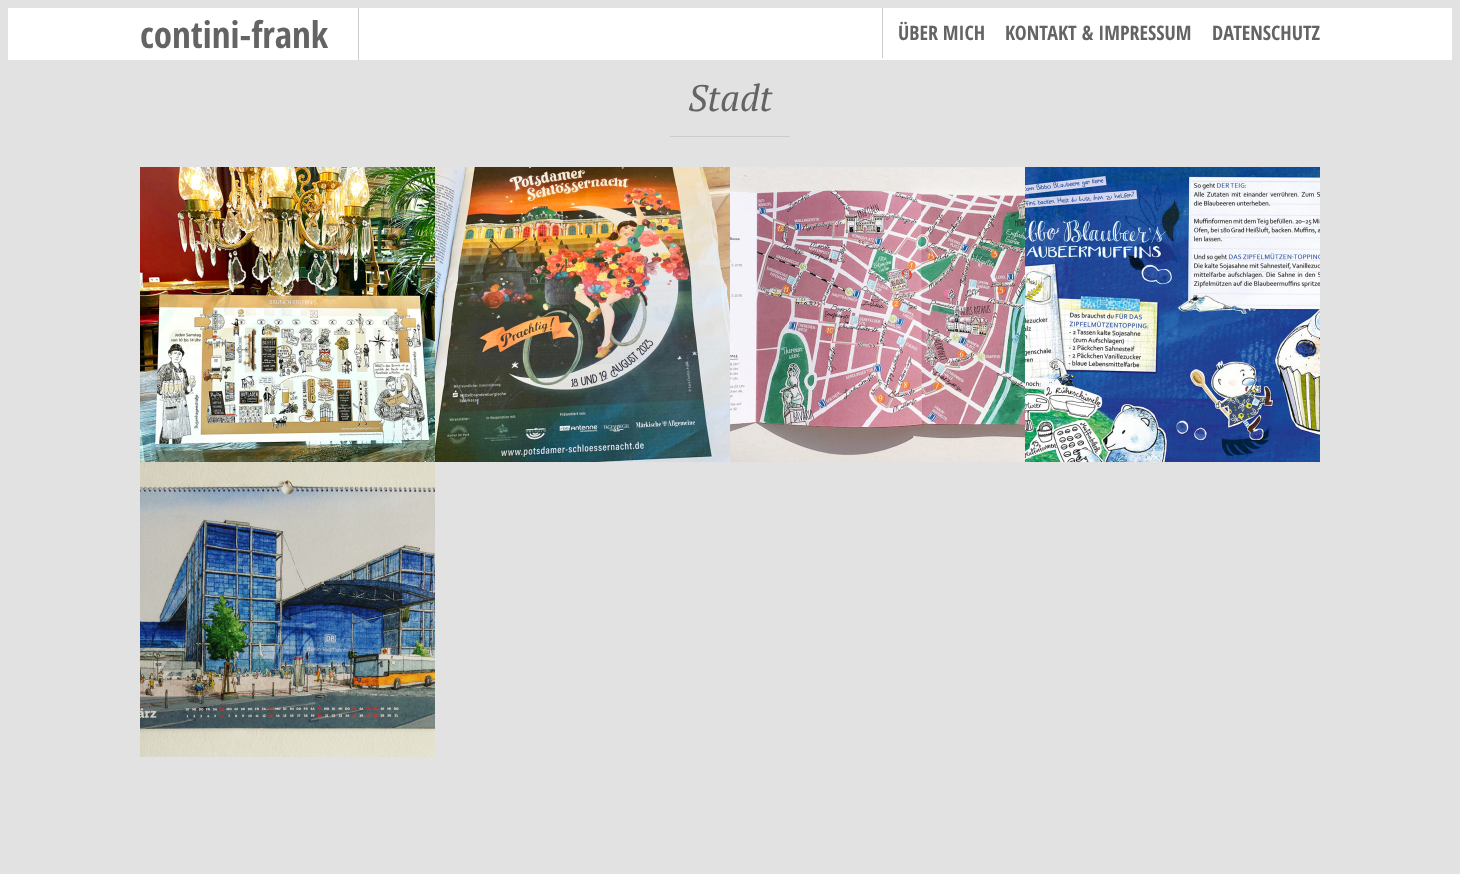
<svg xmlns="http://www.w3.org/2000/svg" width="1460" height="874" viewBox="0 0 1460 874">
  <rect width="100%" height="100%" fill="rgb(226,226,226)"/>
  <rect x="8" y="8" width="1444" height="52" fill="rgb(255,255,255)"/>
  <rect x="358" y="8" width="1" height="52" fill="rgb(204,204,204)"/>
  <text x="140" y="48" font-family="Open Sans Condensed" font-size="37" font-weight="bold" fill="rgb(100,100,100)">contini-frank</text>
  <rect x="882" y="8" width="1" height="50" fill="rgb(204,204,204)"/>
  <g font-family="Open Sans Condensed" font-size="20" font-weight="bold" fill="rgb(100,100,100)">
    <text x="898" y="40">ÜBER MICH</text>
    <text x="1005" y="40">KONTAKT &amp; IMPRESSUM</text>
    <text x="1212" y="40">DATENSCHUTZ</text>
  </g>
  <text x="688" y="111" font-family="PT Serif" font-size="37" font-style="italic" fill="rgb(100,100,100)">Stadt</text>
  <rect x="670" y="136" width="120" height="1" fill="rgb(204,204,204)"/>
  <image x="140" y="167" width="295" height="295" href="pic1.png"/>
  <image x="435" y="167" width="295" height="295" href="pic2.png"/>
  <image x="730" y="167" width="295" height="295" href="pic3.png"/>
  <image x="1025" y="167" width="295" height="295" href="pic4.png"/>
  <image x="140" y="462" width="295" height="295" href="pic5.png"/>
</svg>
